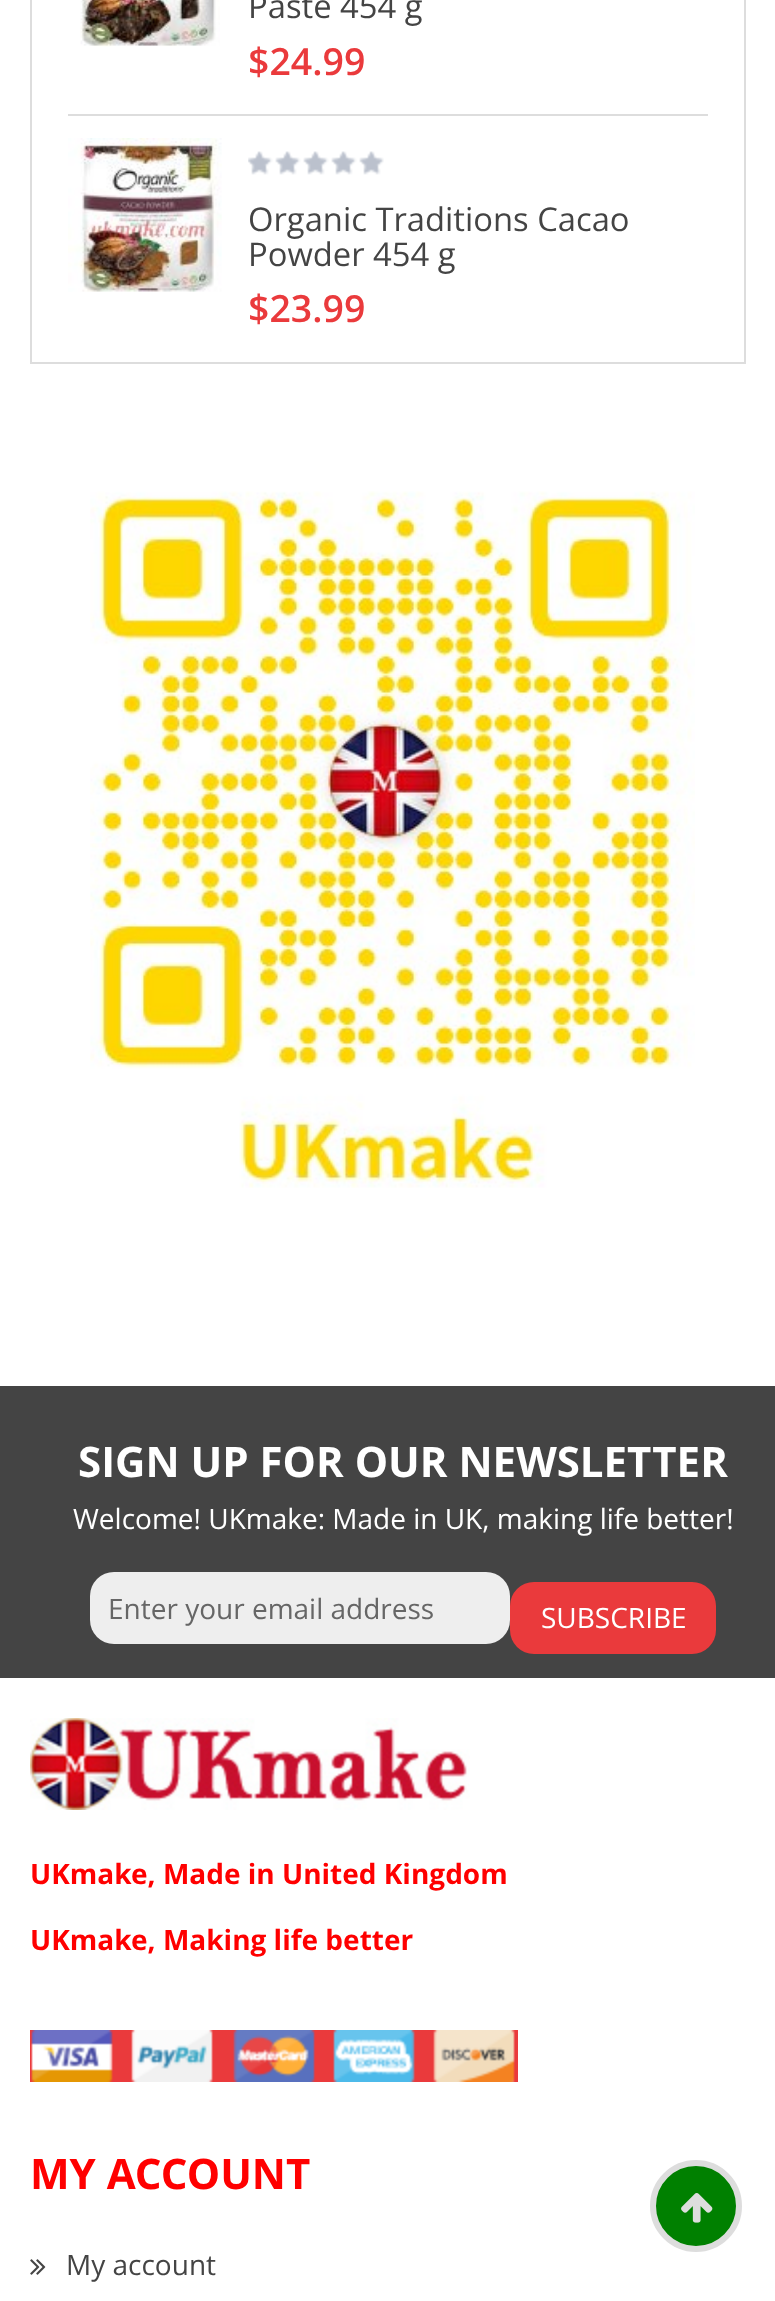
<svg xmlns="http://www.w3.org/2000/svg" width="775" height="2301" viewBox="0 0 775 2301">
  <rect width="100%" height="100%" fill="rgb(255,255,255)"/>
  <rect x="31" y="-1" width="714" height="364" fill="none" stroke="rgb(221,221,221)" stroke-width="2"/>
  <rect x="68" y="114" width="640" height="2" fill="rgb(221,221,221)"/>
  <image x="80" y="0" width="140" height="47" href="pic1.png"/>
  <text x="248" y="18" font-family="Open Sans" font-size="32.75" fill="rgb(68,68,68)">Paste 454 g</text>
  <text x="248" y="75" font-family="Open Sans" font-size="37.5" font-weight="600" fill="rgb(234,58,60)">$24.99</text>
  <image x="68" y="138" width="154" height="154" href="pic2.png"/>
  <image x="248" y="151" width="136" height="24" href="pic3.png"/>
  <g font-family="Open Sans" font-size="32.75" fill="rgb(68,68,68)">
    <text>
      <tspan x="248" y="231">Organic Traditions Cacao</tspan>
      <tspan x="248" y="266">Powder 454 g</tspan>
    </text>
  </g>
  <text x="248" y="322" font-family="Open Sans" font-size="37.5" font-weight="600" fill="rgb(234,58,60)">$23.99</text>
  <image x="90" y="491" width="605" height="697" href="pic4.png"/>
  <rect x="0" y="1386" width="775" height="292" fill="rgb(68,68,68)"/>
  <text x="78" y="1477" font-family="Open Sans" font-size="42" font-weight="bold" fill="rgb(255,255,255)">SIGN UP FOR OUR NEWSLETTER</text>
  <text x="73" y="1529" font-family="Open Sans" font-size="28" fill="rgb(255,255,255)">Welcome! UKmake: Made in UK, making life better!</text>
  <rect x="90" y="1572" width="420" height="72" rx="24" fill="rgb(238,238,238)"/>
  <text x="108" y="1619" font-family="Open Sans" font-size="28" fill="rgb(102,102,102)">Enter your email address</text>
  <rect x="510" y="1582" width="206" height="72" rx="24" fill="rgb(234,58,60)"/>
  <text x="541" y="1628" font-family="Open Sans" font-size="28" fill="rgb(255,255,255)">SUBSCRIBE</text>
  <image x="30" y="1718" width="440" height="92" href="pic5.png"/>
  <g font-family="Open Sans" font-size="28" font-weight="bold" fill="rgb(255,0,0)">
    <text x="30" y="1884">UKmake, Made in United Kingdom</text>
    <text x="30" y="1950">UKmake, Making life better</text>
  </g>
  <rect x="30" y="2030" width="488" height="52" fill="rgb(234,58,60)"/>
  <image x="31" y="2030" width="484" height="52" href="pic6.png"/>
  <text x="30" y="2189" font-family="Open Sans" font-size="42" font-weight="bold" fill="rgb(255,0,0)">MY ACCOUNT</text>
  <image x="30" y="2259" width="16" height="16" href="pic7.png"/>
  <text x="66" y="2275" font-family="Open Sans" font-size="28" fill="rgb(68,68,68)">My account</text>
  <circle cx="696" cy="2206" r="43" fill="rgb(0,128,0)" stroke="rgb(221,221,221)" stroke-width="6"/>
  <image x="681" y="2193" width="32" height="30" href="pic8.png"/>
</svg>
